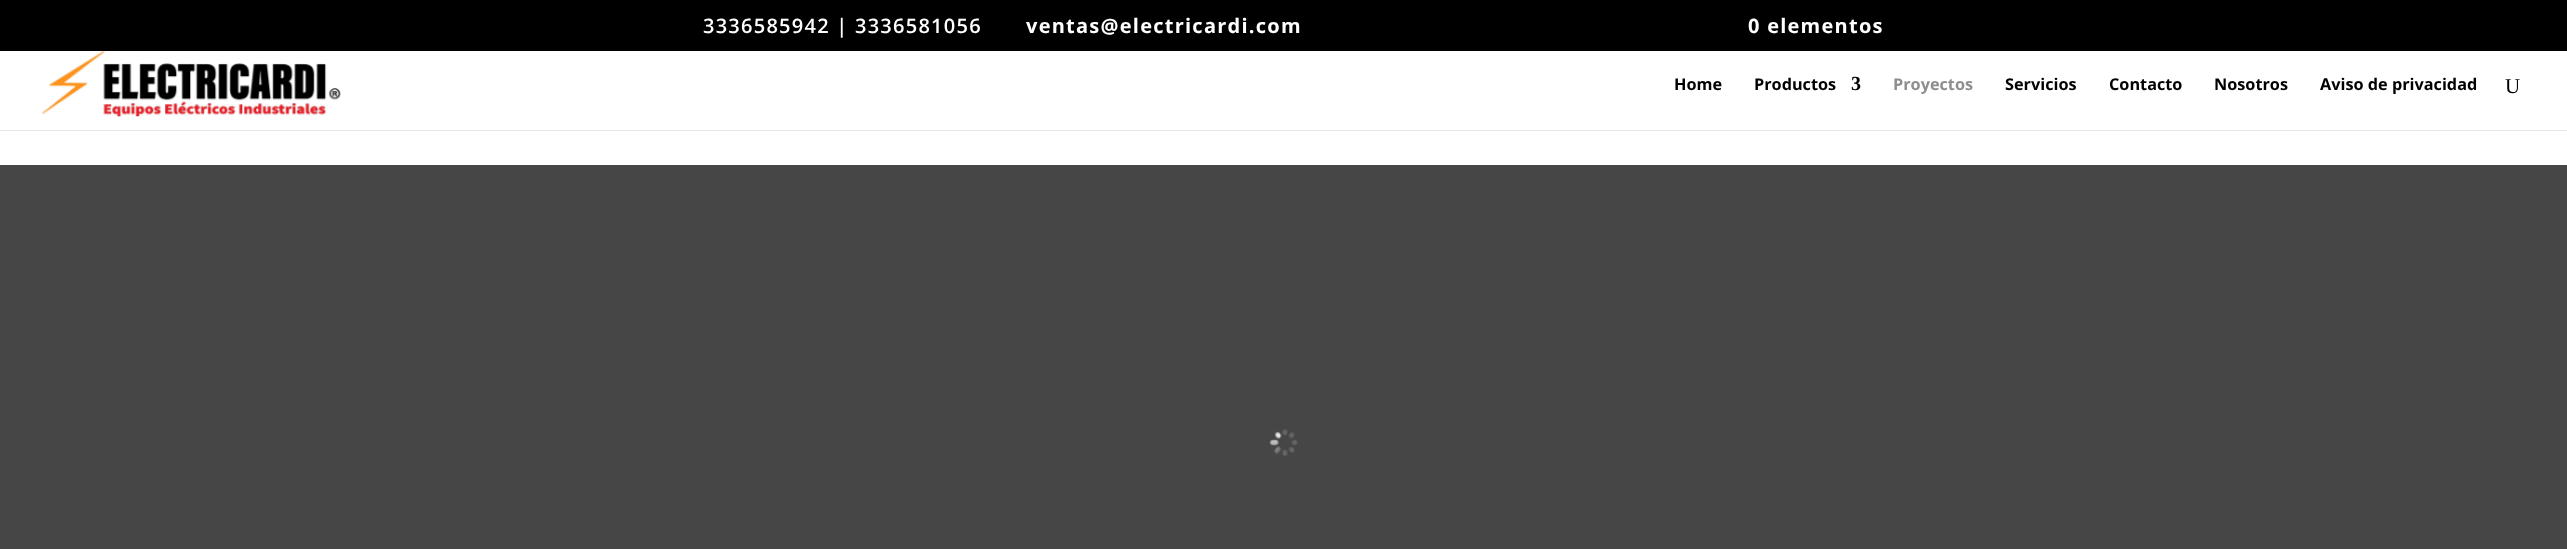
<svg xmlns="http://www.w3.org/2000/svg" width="2567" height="549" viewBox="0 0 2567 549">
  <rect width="100%" height="100%" fill="rgb(255,255,255)"/>
  <rect x="0" y="0" width="2567" height="51" fill="rgb(0,0,0)"/>
  <text x="703" y="33" font-family="Open Sans" font-size="20" font-weight="600" letter-spacing="1.25" fill="rgb(255,255,255)">3336585942 | 3336581056</text>
  <g font-family="Open Sans" font-size="20" font-weight="bold" letter-spacing="1.25" fill="rgb(255,255,255)">
    <text x="1026" y="33">ventas@electricardi.com</text>
    <text x="1748" y="33">0 elementos</text>
  </g>
  <path d="M0 130V131H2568V39V130Z" fill="rgb(230,230,230)"/>
  <image x="42" y="51" width="299" height="66" href="pic1.png"/>
  <g font-family="Open Sans" font-size="16.25" font-weight="bold" fill="rgb(0,0,0)">
    <text x="1674" y="90">Home</text>
    <text x="1754" y="90">Productos</text>
  </g>
  <text x="1851" y="90" font-family="Liberation Serif" font-size="20" font-weight="bold" fill="rgb(0,0,0)">3</text>
  <text x="1893" y="90" font-family="Open Sans" font-size="16.25" font-weight="bold" fill="rgb(142,142,142)">Proyectos</text>
  <g font-family="Open Sans" font-size="16.25" font-weight="bold" fill="rgb(0,0,0)">
    <text x="2005" y="90">Servicios</text>
    <text x="2109" y="90">Contacto</text>
    <text x="2214" y="90">Nosotros</text>
    <text x="2320" y="90">Aviso de privacidad</text>
  </g>
  <text x="2505" y="93" font-family="Liberation Serif" font-size="21" fill="rgb(0,0,0)">U</text>
  <rect x="0" y="165" width="2567" height="384" fill="rgb(70,70,70)"/>
  <image x="1269" y="429" width="29" height="28" href="pic2.png"/>
</svg>
